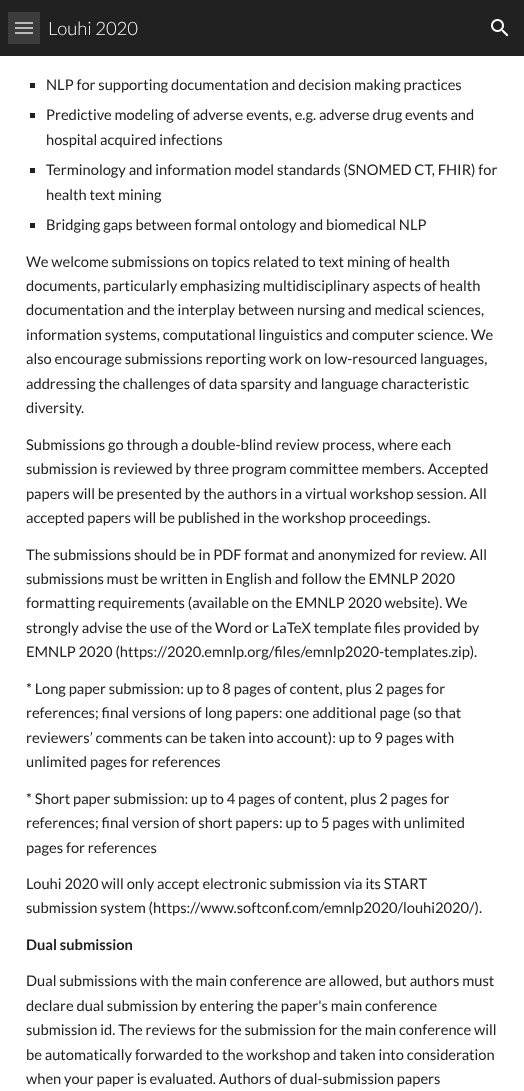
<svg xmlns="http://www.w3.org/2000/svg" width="524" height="1091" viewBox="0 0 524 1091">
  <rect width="100%" height="100%" fill="rgb(255,255,255)"/>
  <rect x="0" y="0" width="524" height="56" fill="rgb(33,33,33)"/>
  <rect x="8" y="12" width="32" height="32" fill="rgb(60,60,60)"/>
  <rect x="15" y="22" width="18" height="2" fill="rgb(187,187,187)"/>
  <rect x="15" y="27" width="18" height="2" fill="rgb(187,187,187)"/>
  <rect x="15" y="32" width="18" height="2" fill="rgb(187,187,187)"/>
  <text x="48" y="35" font-family="Lato" font-size="18.5" font-weight="300" fill="rgb(255,255,255)">Louhi 2020</text>
  <image x="491" y="19" width="18" height="18" href="pic1.png"/>
  <rect x="30" y="83" width="5" height="5" fill="rgb(33,33,33)"/>
  <text x="46" y="90" font-family="Lato" font-size="14.7" fill="rgb(33,33,33)">NLP for supporting documentation and decision making practices</text>
  <rect x="30" y="113" width="5" height="5" fill="rgb(33,33,33)"/>
  <g font-family="Lato" font-size="14.7" fill="rgb(33,33,33)">
    <text>
      <tspan x="46" y="120">Predictive modeling of adverse events, e.g. adverse drug events and</tspan>
      <tspan x="46" y="145">hospital acquired infections</tspan>
    </text>
  </g>
  <rect x="30" y="168" width="5" height="5" fill="rgb(33,33,33)"/>
  <g font-family="Lato" font-size="14.7" fill="rgb(33,33,33)">
    <text>
      <tspan x="46" y="175">Terminology and information model standards (SNOMED CT, FHIR) for</tspan>
      <tspan x="46" y="200">health text mining</tspan>
    </text>
  </g>
  <rect x="30" y="223" width="5" height="5" fill="rgb(33,33,33)"/>
  <g font-family="Lato" font-size="14.7" fill="rgb(33,33,33)">
    <text x="46" y="230">Bridging gaps between formal ontology and biomedical NLP</text>
    <text>
      <tspan x="26" y="267">We welcome submissions on topics related to text mining of health</tspan>
      <tspan x="26" y="291">documents, particularly emphasizing multidisciplinary aspects of health</tspan>
      <tspan x="26" y="315">documentation and the interplay between nursing and medical sciences,</tspan>
      <tspan x="26" y="340">information systems, computational linguistics and computer science. We</tspan>
      <tspan x="26" y="364">also encourage submissions reporting work on low-resourced languages,</tspan>
      <tspan x="26" y="389">addressing the challenges of data sparsity and language characteristic</tspan>
      <tspan x="26" y="413">diversity.</tspan>
    </text>
    <text>
      <tspan x="26" y="450">Submissions go through a double-blind review process, where each</tspan>
      <tspan x="26" y="474">submission is reviewed by three program committee members. Accepted</tspan>
      <tspan x="26" y="499">papers will be presented by the authors in a virtual workshop session. All</tspan>
      <tspan x="26" y="523">accepted papers will be published in the workshop proceedings.</tspan>
    </text>
    <text>
      <tspan x="26" y="560">The submissions should be in PDF format and anonymized for review. All</tspan>
      <tspan x="26" y="584">submissions must be written in English and follow the EMNLP 2020</tspan>
      <tspan x="26" y="608">formatting requirements (available on the EMNLP 2020 website). We</tspan>
      <tspan x="26" y="633">strongly advise the use of the Word or LaTeX template files provided by</tspan>
      <tspan x="26" y="657">EMNLP 2020 (https://2020.emnlp.org/files/emnlp2020-templates.zip).</tspan>
    </text>
    <text>
      <tspan x="26" y="694">* Long paper submission: up to 8 pages of content, plus 2 pages for</tspan>
      <tspan x="26" y="718">references; final versions of long papers: one additional page (so that</tspan>
      <tspan x="26" y="743">reviewers’ comments can be taken into account): up to 9 pages with</tspan>
      <tspan x="26" y="767">unlimited pages for references</tspan>
    </text>
    <text>
      <tspan x="26" y="804">* Short paper submission: up to 4 pages of content, plus 2 pages for</tspan>
      <tspan x="26" y="828">references; final version of short papers: up to 5 pages with unlimited</tspan>
      <tspan x="26" y="853">pages for references</tspan>
    </text>
    <text>
      <tspan x="26" y="889">Louhi 2020 will only accept electronic submission via its START</tspan>
      <tspan x="26" y="913">submission system (https://www.softconf.com/emnlp2020/louhi2020/).</tspan>
    </text>
  </g>
  <text x="26" y="950" font-family="Lato" font-size="14.7" font-weight="bold" fill="rgb(33,33,33)">Dual submission</text>
  <g font-family="Lato" font-size="14.7" fill="rgb(33,33,33)">
    <text>
      <tspan x="26" y="986">Dual submissions with the main conference are allowed, but authors must</tspan>
      <tspan x="26" y="1011">declare dual submission by entering the paper's main conference</tspan>
      <tspan x="26" y="1035">submission id. The reviews for the submission for the main conference will</tspan>
      <tspan x="26" y="1060">be automatically forwarded to the workshop and taken into consideration</tspan>
      <tspan x="26" y="1084">when your paper is evaluated. Authors of dual-submission papers</tspan>
    </text>
  </g>
</svg>
